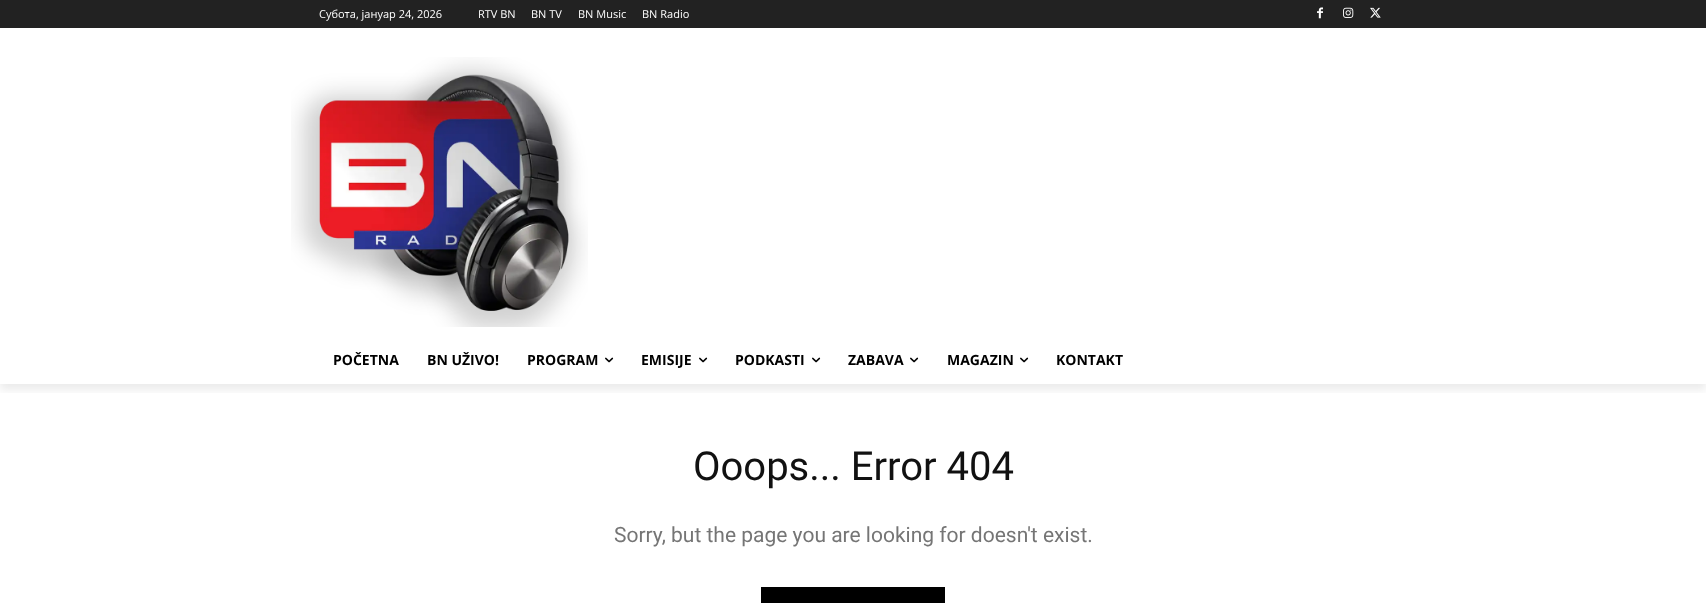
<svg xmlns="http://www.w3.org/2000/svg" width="1706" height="603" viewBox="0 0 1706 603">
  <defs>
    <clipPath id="clip1"><rect x="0" y="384" width="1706" height="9"/></clipPath>
  </defs>
  <rect width="100%" height="100%" fill="rgb(255,255,255)"/>
  <rect x="0" y="0" width="1706" height="28" fill="rgb(34,34,34)"/>
  <image x="1317" y="7" width="6" height="12" href="pic1.png"/>
  <image x="1343" y="7" width="11" height="11" href="pic2.png"/>
  <image x="1370" y="7" width="11" height="11" href="pic3.png"/>
  <image x="291" y="57" width="297" height="270" href="pic4.png"/>
  <g clip-path="url(#clip1)">
    <rect x="0" y="6" width="1706" height="384" fill="rgba(0,0,0,0.08)" filter="blur(4px)"/>
  </g>
  <g font-family="Open Sans" font-size="11" fill="rgb(255,255,255)">
    <text x="319" y="18">Субота, јануар 24, 2026</text>
    <text x="478" y="18">RTV BN</text>
    <text x="531" y="18">BN TV</text>
    <text x="578" y="18">BN Music</text>
    <text x="642" y="18">BN Radio</text>
  </g>
  <g font-family="Open Sans" font-size="14" font-weight="bold" fill="rgb(0,0,0)">
    <text x="333" y="365">POČETNA</text>
    <text x="427" y="365">BN UŽIVO!</text>
    <text x="527" y="365">PROGRAM</text>
  </g>
  <image x="605" y="357" width="9" height="6" href="pic5.png"/>
  <text x="641" y="365" font-family="Open Sans" font-size="14" font-weight="bold" fill="rgb(0,0,0)">EMISIJE</text>
  <image x="699" y="357" width="9" height="6" href="pic5.png"/>
  <text x="735" y="365" font-family="Open Sans" font-size="14" font-weight="bold" fill="rgb(0,0,0)">PODKASTI</text>
  <image x="812" y="357" width="9" height="6" href="pic5.png"/>
  <text x="848" y="365" font-family="Open Sans" font-size="14" font-weight="bold" fill="rgb(0,0,0)">ZABAVA</text>
  <image x="910" y="357" width="9" height="6" href="pic5.png"/>
  <text x="947" y="365" font-family="Open Sans" font-size="14" font-weight="bold" fill="rgb(0,0,0)">MAGAZIN</text>
  <image x="1020" y="357" width="9" height="6" href="pic5.png"/>
  <text x="1056" y="365" font-family="Open Sans" font-size="14" font-weight="bold" fill="rgb(0,0,0)">KONTAKT</text>
  <text x="693" y="480" font-family="Roboto" font-size="40" fill="rgb(17,17,17)">Ooops... Error 404</text>
  <text x="614" y="542" font-family="Roboto" font-size="21" fill="rgb(117,117,117)">Sorry, but the page you are looking for doesn't exist.</text>
  <rect x="761" y="587" width="184" height="16" fill="rgb(0,0,0)"/>
</svg>
